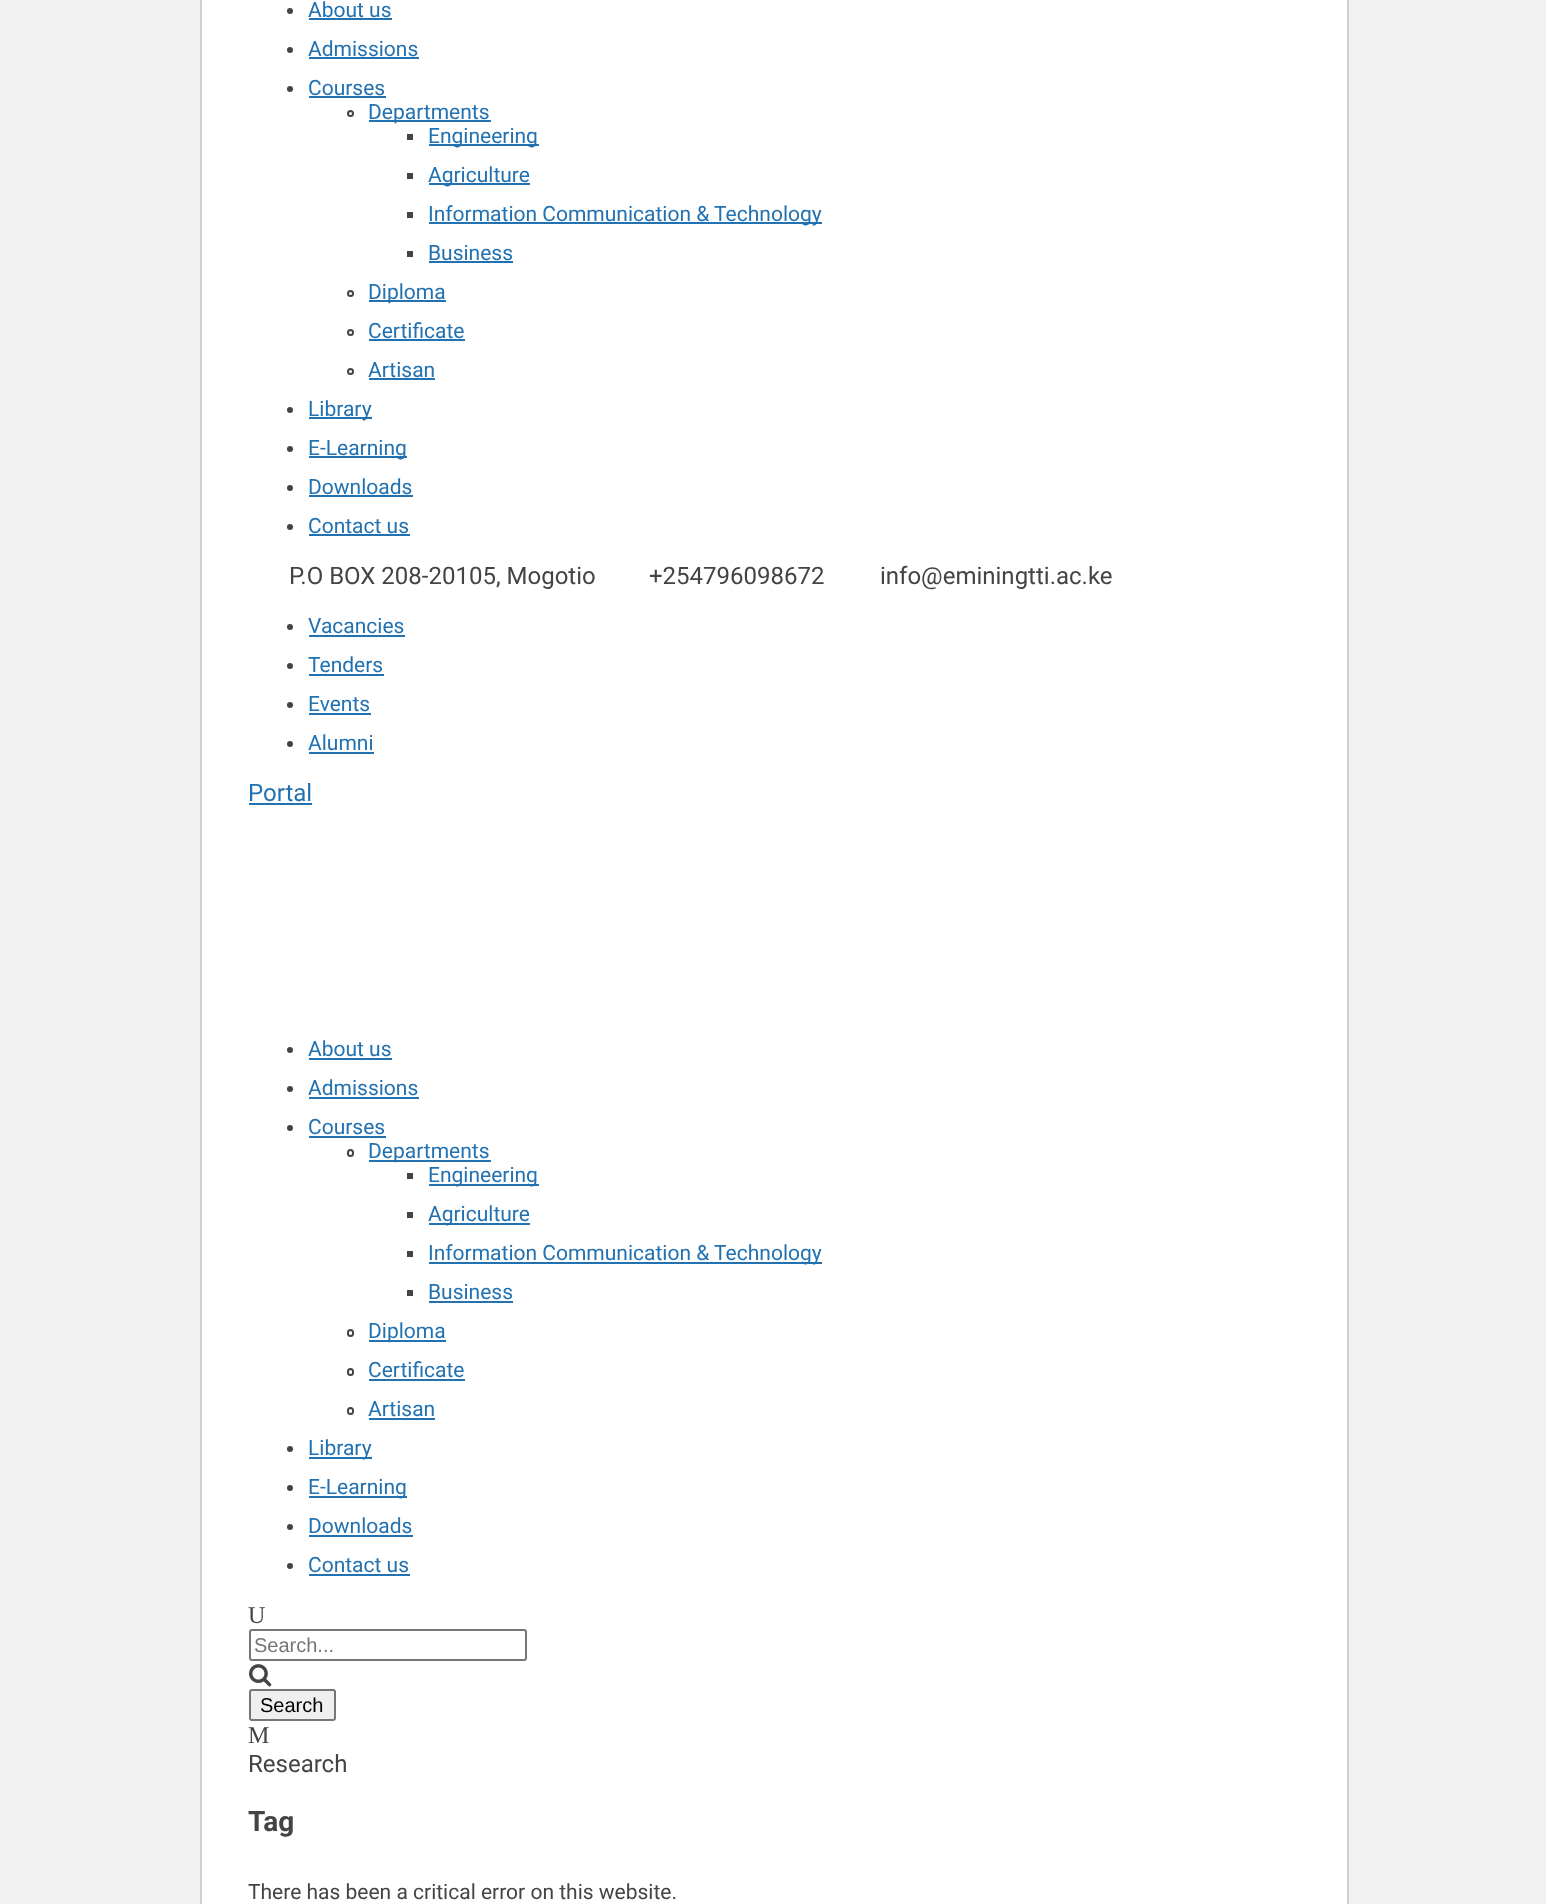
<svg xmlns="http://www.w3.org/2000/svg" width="1546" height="1904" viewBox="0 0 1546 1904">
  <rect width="100%" height="100%" fill="rgb(241,241,241)"/>
  <rect x="201" y="-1" width="1147" height="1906" fill="rgb(255,255,255)" stroke="rgb(204,208,212)" stroke-width="2"/>
  <circle cx="290" cy="11" r="3" fill="rgb(68,68,68)"/>
  <text x="308" y="17" font-family="Roboto" font-size="21" fill="rgb(34,113,177)">About us</text>
  <rect x="309" y="18" width="83" height="2" fill="rgb(34,113,177)"/>
  <circle cx="290" cy="50" r="3" fill="rgb(68,68,68)"/>
  <text x="308" y="56" font-family="Roboto" font-size="21" fill="rgb(34,113,177)">Admissions</text>
  <rect x="309" y="57" width="110" height="2" fill="rgb(34,113,177)"/>
  <circle cx="290" cy="89" r="3" fill="rgb(68,68,68)"/>
  <text x="308" y="95" font-family="Roboto" font-size="21" fill="rgb(34,113,177)">Courses</text>
  <rect x="309" y="96" width="77" height="2" fill="rgb(34,113,177)"/>
  <circle cx="350.5" cy="113.5" r="2.5" fill="none" stroke="rgb(68,68,68)" stroke-width="2"/>
  <rect x="369" y="120" width="122" height="2" fill="rgb(34,113,177)"/>
  <text x="368" y="119" font-family="Roboto" font-size="21" fill="rgb(34,113,177)">Departments</text>
  <rect x="407" y="134" width="6" height="6" fill="rgb(68,68,68)"/>
  <rect x="429" y="144" width="110" height="2" fill="rgb(34,113,177)"/>
  <text x="428" y="143" font-family="Roboto" font-size="21" fill="rgb(34,113,177)">Engineering</text>
  <rect x="407" y="173" width="6" height="6" fill="rgb(68,68,68)"/>
  <rect x="429" y="183" width="101" height="2" fill="rgb(34,113,177)"/>
  <text x="428" y="182" font-family="Roboto" font-size="21" fill="rgb(34,113,177)">Agriculture</text>
  <rect x="407" y="212" width="6" height="6" fill="rgb(68,68,68)"/>
  <rect x="429" y="222" width="393" height="2" fill="rgb(34,113,177)"/>
  <text x="428" y="221" font-family="Roboto" font-size="21" fill="rgb(34,113,177)">Information Communication &amp; Technology</text>
  <rect x="407" y="251" width="6" height="6" fill="rgb(68,68,68)"/>
  <text x="428" y="260" font-family="Roboto" font-size="21" fill="rgb(34,113,177)">Business</text>
  <rect x="429" y="261" width="84" height="2" fill="rgb(34,113,177)"/>
  <circle cx="350.5" cy="293.5" r="2.5" fill="none" stroke="rgb(68,68,68)" stroke-width="2"/>
  <rect x="369" y="300" width="77" height="2" fill="rgb(34,113,177)"/>
  <text x="368" y="299" font-family="Roboto" font-size="21" fill="rgb(34,113,177)">Diploma</text>
  <circle cx="350.5" cy="332.5" r="2.5" fill="none" stroke="rgb(68,68,68)" stroke-width="2"/>
  <text x="368" y="338" font-family="Roboto" font-size="21" fill="rgb(34,113,177)">Certificate</text>
  <rect x="369" y="339" width="96" height="2" fill="rgb(34,113,177)"/>
  <circle cx="350.5" cy="371.5" r="2.5" fill="none" stroke="rgb(68,68,68)" stroke-width="2"/>
  <text x="368" y="377" font-family="Roboto" font-size="21" fill="rgb(34,113,177)">Artisan</text>
  <rect x="369" y="378" width="66" height="2" fill="rgb(34,113,177)"/>
  <circle cx="290" cy="410" r="3" fill="rgb(68,68,68)"/>
  <rect x="309" y="417" width="63" height="2" fill="rgb(34,113,177)"/>
  <text x="308" y="416" font-family="Roboto" font-size="21" fill="rgb(34,113,177)">Library</text>
  <circle cx="290" cy="449" r="3" fill="rgb(68,68,68)"/>
  <rect x="309" y="456" width="98" height="2" fill="rgb(34,113,177)"/>
  <text x="308" y="455" font-family="Roboto" font-size="21" fill="rgb(34,113,177)">E-Learning</text>
  <circle cx="290" cy="488" r="3" fill="rgb(68,68,68)"/>
  <text x="308" y="494" font-family="Roboto" font-size="21" fill="rgb(34,113,177)">Downloads</text>
  <rect x="309" y="495" width="104" height="2" fill="rgb(34,113,177)"/>
  <circle cx="290" cy="527" r="3" fill="rgb(68,68,68)"/>
  <text x="308" y="533" font-family="Roboto" font-size="21" fill="rgb(34,113,177)">Contact us</text>
  <rect x="309" y="534" width="101" height="2" fill="rgb(34,113,177)"/>
  <g font-family="Roboto" font-size="24" fill="rgb(68,68,68)">
    <text x="289" y="584">P.O BOX 208-20105, Mogotio</text>
    <text x="649" y="584">+254796098672</text>
    <text x="880" y="584">info@eminingtti.ac.ke</text>
  </g>
  <circle cx="290" cy="627" r="3" fill="rgb(68,68,68)"/>
  <text x="308" y="633" font-family="Roboto" font-size="21" fill="rgb(34,113,177)">Vacancies</text>
  <rect x="309" y="635" width="96" height="2" fill="rgb(34,113,177)"/>
  <circle cx="290" cy="666" r="3" fill="rgb(68,68,68)"/>
  <text x="308" y="672" font-family="Roboto" font-size="21" fill="rgb(34,113,177)">Tenders</text>
  <rect x="309" y="674" width="75" height="2" fill="rgb(34,113,177)"/>
  <circle cx="290" cy="705" r="3" fill="rgb(68,68,68)"/>
  <text x="308" y="711" font-family="Roboto" font-size="21" fill="rgb(34,113,177)">Events</text>
  <rect x="309" y="713" width="62" height="2" fill="rgb(34,113,177)"/>
  <circle cx="290" cy="744" r="3" fill="rgb(68,68,68)"/>
  <text x="308" y="750" font-family="Roboto" font-size="21" fill="rgb(34,113,177)">Alumni</text>
  <rect x="309" y="752" width="65" height="2" fill="rgb(34,113,177)"/>
  <text x="248" y="801" font-family="Roboto" font-size="24" fill="rgb(34,113,177)">Portal</text>
  <rect x="249" y="803" width="63" height="2" fill="rgb(34,113,177)"/>
  <circle cx="290" cy="1050" r="3" fill="rgb(68,68,68)"/>
  <text x="308" y="1056" font-family="Roboto" font-size="21" fill="rgb(34,113,177)">About us</text>
  <rect x="309" y="1058" width="83" height="2" fill="rgb(34,113,177)"/>
  <circle cx="290" cy="1089" r="3" fill="rgb(68,68,68)"/>
  <text x="308" y="1095" font-family="Roboto" font-size="21" fill="rgb(34,113,177)">Admissions</text>
  <rect x="309" y="1097" width="110" height="2" fill="rgb(34,113,177)"/>
  <circle cx="290" cy="1128" r="3" fill="rgb(68,68,68)"/>
  <text x="308" y="1134" font-family="Roboto" font-size="21" fill="rgb(34,113,177)">Courses</text>
  <rect x="309" y="1136" width="77" height="2" fill="rgb(34,113,177)"/>
  <rect x="348" y="1150" width="5" height="6" rx="2.5" fill="none" stroke="rgb(68,68,68)" stroke-width="2"/>
  <rect x="369" y="1160" width="122" height="2" fill="rgb(34,113,177)"/>
  <text x="368" y="1158" font-family="Roboto" font-size="21" fill="rgb(34,113,177)">Departments</text>
  <rect x="407" y="1173" width="6" height="6" fill="rgb(68,68,68)"/>
  <rect x="429" y="1184" width="110" height="2" fill="rgb(34,113,177)"/>
  <text x="428" y="1182" font-family="Roboto" font-size="21" fill="rgb(34,113,177)">Engineering</text>
  <rect x="407" y="1212" width="6" height="6" fill="rgb(68,68,68)"/>
  <rect x="429" y="1223" width="101" height="2" fill="rgb(34,113,177)"/>
  <text x="428" y="1221" font-family="Roboto" font-size="21" fill="rgb(34,113,177)">Agriculture</text>
  <rect x="407" y="1251" width="6" height="6" fill="rgb(68,68,68)"/>
  <rect x="429" y="1262" width="393" height="2" fill="rgb(34,113,177)"/>
  <text x="428" y="1260" font-family="Roboto" font-size="21" fill="rgb(34,113,177)">Information Communication &amp; Technology</text>
  <rect x="407" y="1290" width="6" height="6" fill="rgb(68,68,68)"/>
  <text x="428" y="1299" font-family="Roboto" font-size="21" fill="rgb(34,113,177)">Business</text>
  <rect x="429" y="1301" width="84" height="2" fill="rgb(34,113,177)"/>
  <rect x="348" y="1330" width="5" height="6" rx="2.5" fill="none" stroke="rgb(68,68,68)" stroke-width="2"/>
  <rect x="369" y="1340" width="77" height="2" fill="rgb(34,113,177)"/>
  <text x="368" y="1338" font-family="Roboto" font-size="21" fill="rgb(34,113,177)">Diploma</text>
  <rect x="348" y="1369" width="5" height="6" rx="2.5" fill="none" stroke="rgb(68,68,68)" stroke-width="2"/>
  <text x="368" y="1377" font-family="Roboto" font-size="21" fill="rgb(34,113,177)">Certificate</text>
  <rect x="369" y="1379" width="96" height="2" fill="rgb(34,113,177)"/>
  <rect x="348" y="1408" width="5" height="6" rx="2.5" fill="none" stroke="rgb(68,68,68)" stroke-width="2"/>
  <text x="368" y="1416" font-family="Roboto" font-size="21" fill="rgb(34,113,177)">Artisan</text>
  <rect x="369" y="1418" width="66" height="2" fill="rgb(34,113,177)"/>
  <circle cx="290" cy="1449" r="3" fill="rgb(68,68,68)"/>
  <rect x="309" y="1457" width="63" height="2" fill="rgb(34,113,177)"/>
  <text x="308" y="1455" font-family="Roboto" font-size="21" fill="rgb(34,113,177)">Library</text>
  <circle cx="290" cy="1488" r="3" fill="rgb(68,68,68)"/>
  <rect x="309" y="1496" width="98" height="2" fill="rgb(34,113,177)"/>
  <text x="308" y="1494" font-family="Roboto" font-size="21" fill="rgb(34,113,177)">E-Learning</text>
  <circle cx="290" cy="1527" r="3" fill="rgb(68,68,68)"/>
  <text x="308" y="1533" font-family="Roboto" font-size="21" fill="rgb(34,113,177)">Downloads</text>
  <rect x="309" y="1535" width="104" height="2" fill="rgb(34,113,177)"/>
  <circle cx="290" cy="1566" r="3" fill="rgb(68,68,68)"/>
  <text x="308" y="1572" font-family="Roboto" font-size="21" fill="rgb(34,113,177)">Contact us</text>
  <rect x="309" y="1574" width="101" height="2" fill="rgb(34,113,177)"/>
  <text x="248" y="1623" font-family="Liberation Serif" font-size="24" fill="rgb(68,68,68)">U</text>
  <rect x="250" y="1630" width="276" height="30" rx="2" fill="none" stroke="rgb(118,118,118)" stroke-width="2"/>
  <text x="254" y="1652" font-family="Liberation Sans" font-size="20" fill="rgb(117,117,117)">Search...</text>
  <image x="249" y="1664" width="23" height="23" href="pic1.png"/>
  <rect x="250" y="1690" width="85" height="30" rx="2" fill="rgb(239,239,239)" stroke="rgb(118,118,118)" stroke-width="2"/>
  <text x="260" y="1712" font-family="Liberation Sans" font-size="20" fill="rgb(0,0,0)">Search</text>
  <text x="248" y="1743" font-family="Liberation Serif" font-size="24" fill="rgb(68,68,68)">M</text>
  <text x="248" y="1772" font-family="Roboto" font-size="24" fill="rgb(68,68,68)">Research</text>
  <text x="248" y="1831" font-family="Roboto" font-size="28" font-weight="bold" fill="rgb(68,68,68)">Tag</text>
  <text x="248" y="1899" font-family="Roboto" font-size="21" fill="rgb(68,68,68)">There has been a critical error on this website.</text>
</svg>
